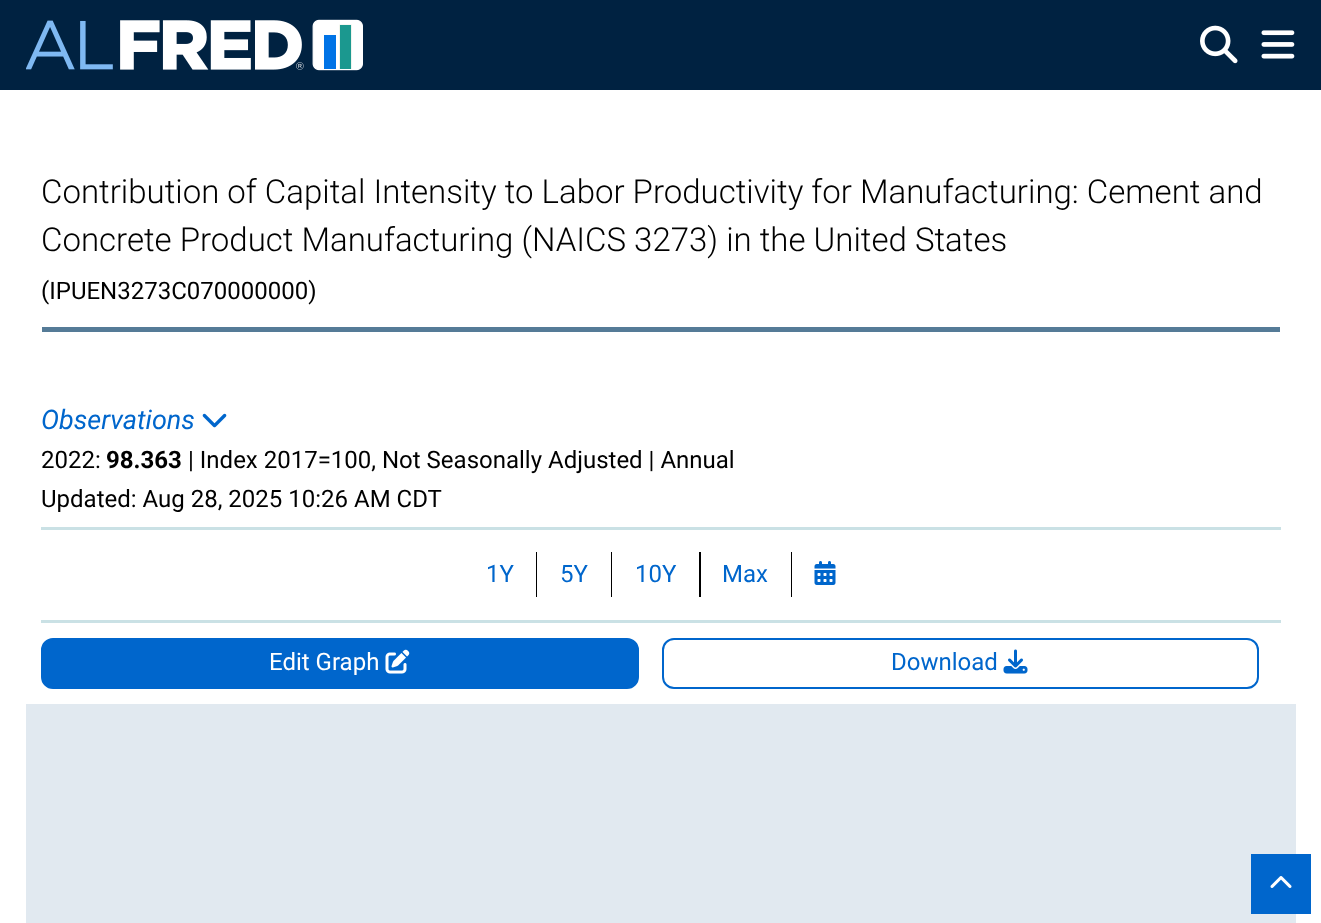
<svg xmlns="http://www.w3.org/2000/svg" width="1321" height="923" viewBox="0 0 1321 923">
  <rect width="100%" height="100%" fill="rgb(255,255,255)"/>
  <rect x="0" y="0" width="1321" height="90" fill="rgb(0,34,65)"/>
  <image x="26" y="19" width="337" height="52" href="pic1.png"/>
  <image x="1200" y="25" width="38" height="39" href="pic2.png"/>
  <image x="1261" y="30" width="34" height="29" href="pic3.png"/>
  <g font-family="Roboto" font-size="33" font-weight="300" fill="rgb(0,0,0)">
    <text>
      <tspan x="41" y="203">Contribution of Capital Intensity to Labor Productivity for Manufacturing: Cement and</tspan>
      <tspan x="41" y="251">Concrete Product Manufacturing (NAICS 3273) in the United States</tspan>
    </text>
  </g>
  <text x="41" y="299" font-family="Roboto" font-size="24" fill="rgb(0,0,0)">(IPUEN3273C070000000)</text>
  <rect x="42" y="327" width="1238" height="5" fill="rgb(85,123,151)"/>
  <rect x="41" y="527" width="1240" height="3" fill="rgb(202,225,229)"/>
  <text x="41" y="429" font-family="Roboto" font-size="27" font-style="italic" fill="rgb(0,102,204)">Observations</text>
  <image x="202" y="413" width="25" height="15" href="pic4.png"/>
  <text x="41" y="468" font-family="Roboto" font-size="24" fill="rgb(0,0,0)">2022:</text>
  <text x="106" y="468" font-family="Roboto" font-size="24" font-weight="bold" fill="rgb(0,0,0)">98.363</text>
  <g font-family="Roboto" font-size="24" fill="rgb(0,0,0)">
    <text x="188" y="468">| Index 2017=100, Not Seasonally Adjusted | Annual</text>
    <text x="41" y="507">Updated: Aug 28, 2025 10:26 AM CDT</text>
  </g>
  <rect x="41" y="620" width="1240" height="3" fill="rgb(202,225,229)"/>
  <rect x="536" y="552" width="256" height="45" fill="rgb(0,0,0)"/>
  <text x="486" y="582" font-family="Roboto" font-size="24" fill="rgb(0,102,204)">1Y</text>
  <rect x="537" y="552" width="74" height="45" fill="rgb(255,255,255)"/>
  <text x="560" y="582" font-family="Roboto" font-size="24" fill="rgb(0,102,204)">5Y</text>
  <rect x="612" y="552" width="87" height="45" fill="rgb(255,255,255)"/>
  <text x="635" y="582" font-family="Roboto" font-size="24" fill="rgb(0,102,204)">10Y</text>
  <rect x="701" y="552" width="90" height="45" fill="rgb(255,255,255)"/>
  <text x="722" y="582" font-family="Roboto" font-size="24" fill="rgb(0,102,204)">Max</text>
  <image x="814" y="561" width="22" height="24" href="pic5.png"/>
  <rect x="42" y="639" width="596" height="49" rx="11" fill="rgb(0,102,204)" stroke="rgb(0,102,204)" stroke-width="2"/>
  <text x="269" y="670" font-family="Roboto" font-size="24" fill="rgb(255,255,255)">Edit Graph</text>
  <image x="385" y="649" width="25" height="25" href="pic6.png"/>
  <rect x="663" y="639" width="595" height="49" rx="11" fill="none" stroke="rgb(0,102,204)" stroke-width="2"/>
  <text x="891" y="670" font-family="Roboto" font-size="24" fill="rgb(0,102,204)">Download</text>
  <image x="1003" y="649" width="25" height="25" href="pic7.png"/>
  <rect x="26" y="704" width="1270" height="219" fill="rgb(225,233,240)"/>
  <rect x="1251" y="854" width="60" height="60" fill="rgb(0,102,204)"/>
  <image x="1270" y="876" width="22" height="12" href="pic8.png"/>
</svg>
